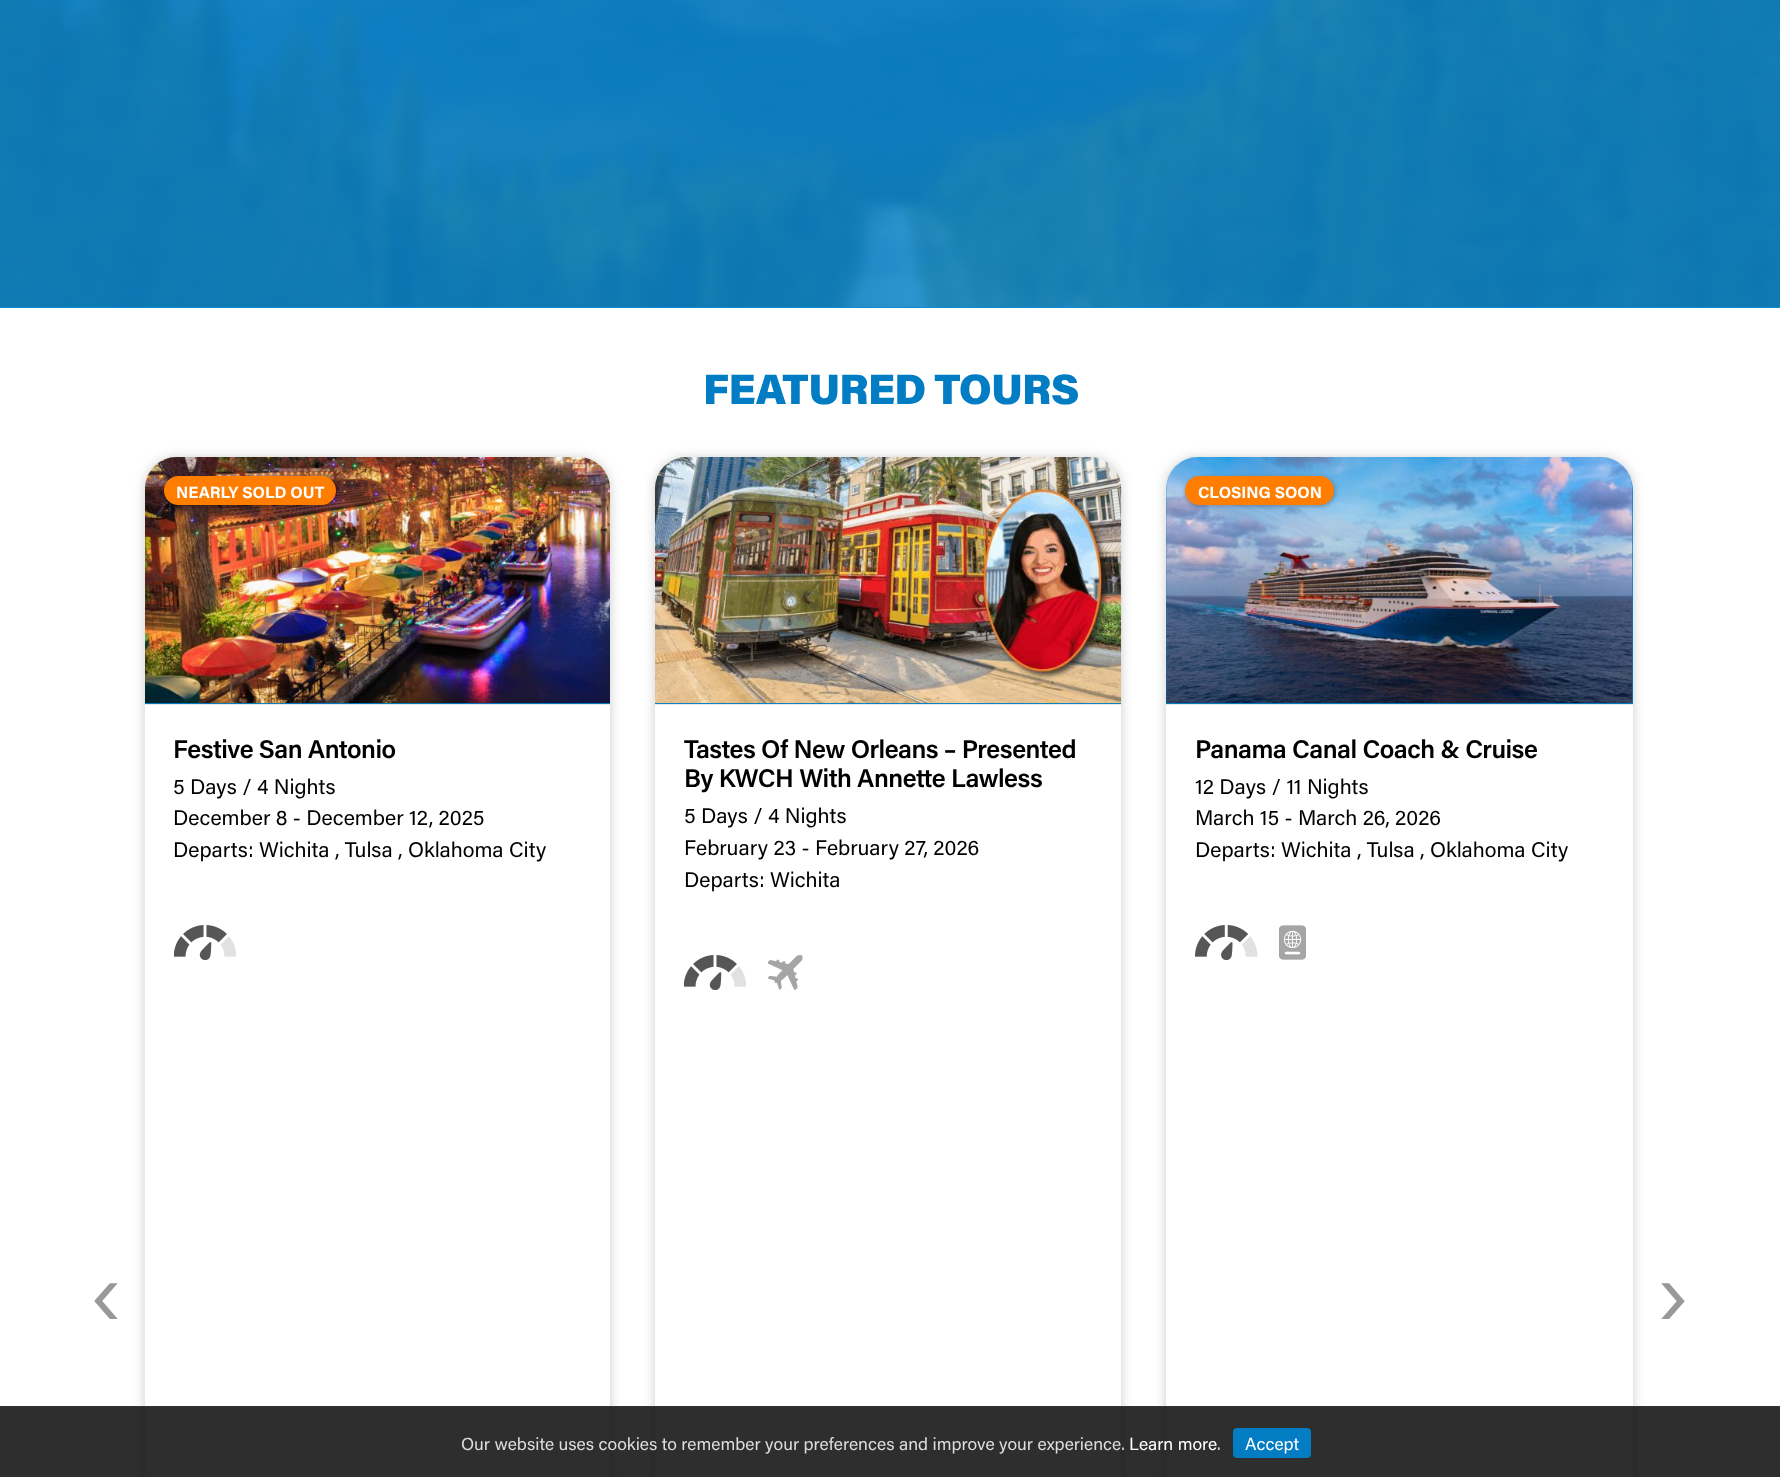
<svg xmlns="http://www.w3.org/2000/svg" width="1780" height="1477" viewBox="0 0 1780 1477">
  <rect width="100%" height="100%" fill="rgb(255,255,255)"/>
  <rect x="0" y="307" width="1780" height="1" fill="rgb(12,140,214)"/>
  <image x="0" y="0" width="1780" height="307" href="pic1.png"/>
  <text x="703" y="404" font-family="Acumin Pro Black" font-size="42.5" font-weight="900" letter-spacing="-0.8" fill="rgb(2,125,196)">FEATURED TOURS</text>
  <rect x="145" y="458" width="465" height="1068" rx="31" fill="rgb(204,204,204)" filter="blur(6px)"/>
  <rect x="145" y="458" width="465" height="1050" rx="31" fill="rgb(255,255,255)"/>
  <path d="M178 458H577C595 458 610 473 610 491V705H145V491C145 473 160 458 178 458Z" fill="rgb(2,125,196)"/>
  <rect x="145" y="704" width="465" height="1" fill="rgb(232,232,232)"/>
  <image x="145" y="457" width="465" height="247" href="pic2.png"/>
  <rect x="165" y="478" width="173" height="28" rx="14" fill="rgba(0,0,0,0.3)" filter="blur(2.5px)"/>
  <rect x="164" y="476" width="172" height="29" rx="14.5" fill="rgb(255,125,0)"/>
  <text x="176" y="498" font-family="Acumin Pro" font-size="16.25" font-weight="bold" fill="rgb(255,255,255)">NEARLY SOLD OUT</text>
  <text x="173" y="758" font-family="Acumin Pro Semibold" font-size="25.5" font-weight="600" letter-spacing="-0.5" fill="rgb(0,0,0)">Festive San Antonio</text>
  <g font-family="Acumin Pro" font-size="21.25" fill="rgb(0,0,0)">
    <text>
      <tspan x="173" y="794">5 Days / 4 Nights</tspan>
      <tspan x="173" y="825">December 8 - December 12, 2025</tspan>
      <tspan x="173" y="857">Departs: Wichita , Tulsa , Oklahoma City</tspan>
    </text>
  </g>
  <image x="174" y="925" width="62" height="35" href="pic3.png"/>
  <rect x="655" y="458" width="466" height="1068" rx="31" fill="rgb(204,204,204)" filter="blur(6px)"/>
  <rect x="655" y="458" width="466" height="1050" rx="31" fill="rgb(255,255,255)"/>
  <path d="M688 458H1088C1106 458 1121 473 1121 491V705H655V491C655 473 670 458 688 458Z" fill="rgb(2,125,196)"/>
  <rect x="655" y="704" width="466" height="1" fill="rgb(232,232,232)"/>
  <image x="655" y="457" width="467" height="247" href="pic4.png"/>
  <g font-family="Acumin Pro Semibold" font-size="25.5" font-weight="600" letter-spacing="-0.5" fill="rgb(0,0,0)">
    <text>
      <tspan x="684" y="758">Tastes Of New Orleans – Presented</tspan>
      <tspan x="684" y="787">By KWCH With Annette Lawless</tspan>
    </text>
  </g>
  <g font-family="Acumin Pro" font-size="21.25" fill="rgb(0,0,0)">
    <text>
      <tspan x="684" y="823">5 Days / 4 Nights</tspan>
      <tspan x="684" y="855">February 23 - February 27, 2026</tspan>
      <tspan x="684" y="887">Departs: Wichita</tspan>
    </text>
  </g>
  <image x="684" y="955" width="62" height="35" href="pic3.png"/>
  <image x="768" y="955" width="35" height="35" href="pic5.png"/>
  <rect x="1166" y="458" width="467" height="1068" rx="31" fill="rgb(204,204,204)" filter="blur(6px)"/>
  <rect x="1166" y="458" width="467" height="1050" rx="31" fill="rgb(255,255,255)"/>
  <path d="M1199 458H1600C1618 458 1633 473 1633 491V705H1166V491C1166 473 1181 458 1199 458Z" fill="rgb(2,125,196)"/>
  <rect x="1166" y="704" width="467" height="1" fill="rgb(232,232,232)"/>
  <image x="1166" y="457" width="467" height="247" href="pic6.png"/>
  <rect x="1186" y="478" width="149" height="28" rx="14" fill="rgba(0,0,0,0.3)" filter="blur(2.5px)"/>
  <rect x="1185" y="476" width="149" height="29" rx="14.5" fill="rgb(255,125,0)"/>
  <text x="1198" y="498" font-family="Acumin Pro" font-size="16.25" font-weight="bold" fill="rgb(255,255,255)">CLOSING SOON</text>
  <text x="1195" y="758" font-family="Acumin Pro Semibold" font-size="25.5" font-weight="600" letter-spacing="-0.5" fill="rgb(0,0,0)">Panama Canal Coach &amp; Cruise</text>
  <g font-family="Acumin Pro" font-size="21.25" fill="rgb(0,0,0)">
    <text>
      <tspan x="1195" y="794">12 Days / 11 Nights</tspan>
      <tspan x="1195" y="825">March 15 - March 26, 2026</tspan>
      <tspan x="1195" y="857">Departs: Wichita , Tulsa , Oklahoma City</tspan>
    </text>
  </g>
  <image x="1195" y="925" width="63" height="35" href="pic7.png"/>
  <image x="1279" y="925" width="27" height="35" href="pic8.png"/>
  <g font-family="Acumin Pro" font-size="92" fill="rgb(153,153,153)">
    <text x="89" y="1325">‹</text>
    <text x="1656" y="1325">›</text>
  </g>
  <rect x="0" y="1407" width="1780" height="70" fill="rgba(0,0,0,0.82)"/>
  <rect x="0" y="1406" width="1780" height="1" fill="rgb(51,51,51)"/>
  <text x="461" y="1450" font-family="Acumin Pro" font-size="17.5" fill="rgb(221,221,221)">Our website uses cookies to remember your preferences and improve your experience.</text>
  <text x="1129" y="1450" font-family="Acumin Pro" font-size="17.5" fill="rgb(255,255,255)">Learn more</text>
  <text x="1217" y="1450" font-family="Acumin Pro" font-size="17.5" fill="rgb(221,221,221)">.</text>
  <rect x="1233" y="1428" width="78" height="30" rx="4" fill="rgb(2,125,196)"/>
  <text x="1245" y="1450" font-family="Acumin Pro" font-size="17.5" fill="rgb(255,255,255)">Accept</text>
</svg>
